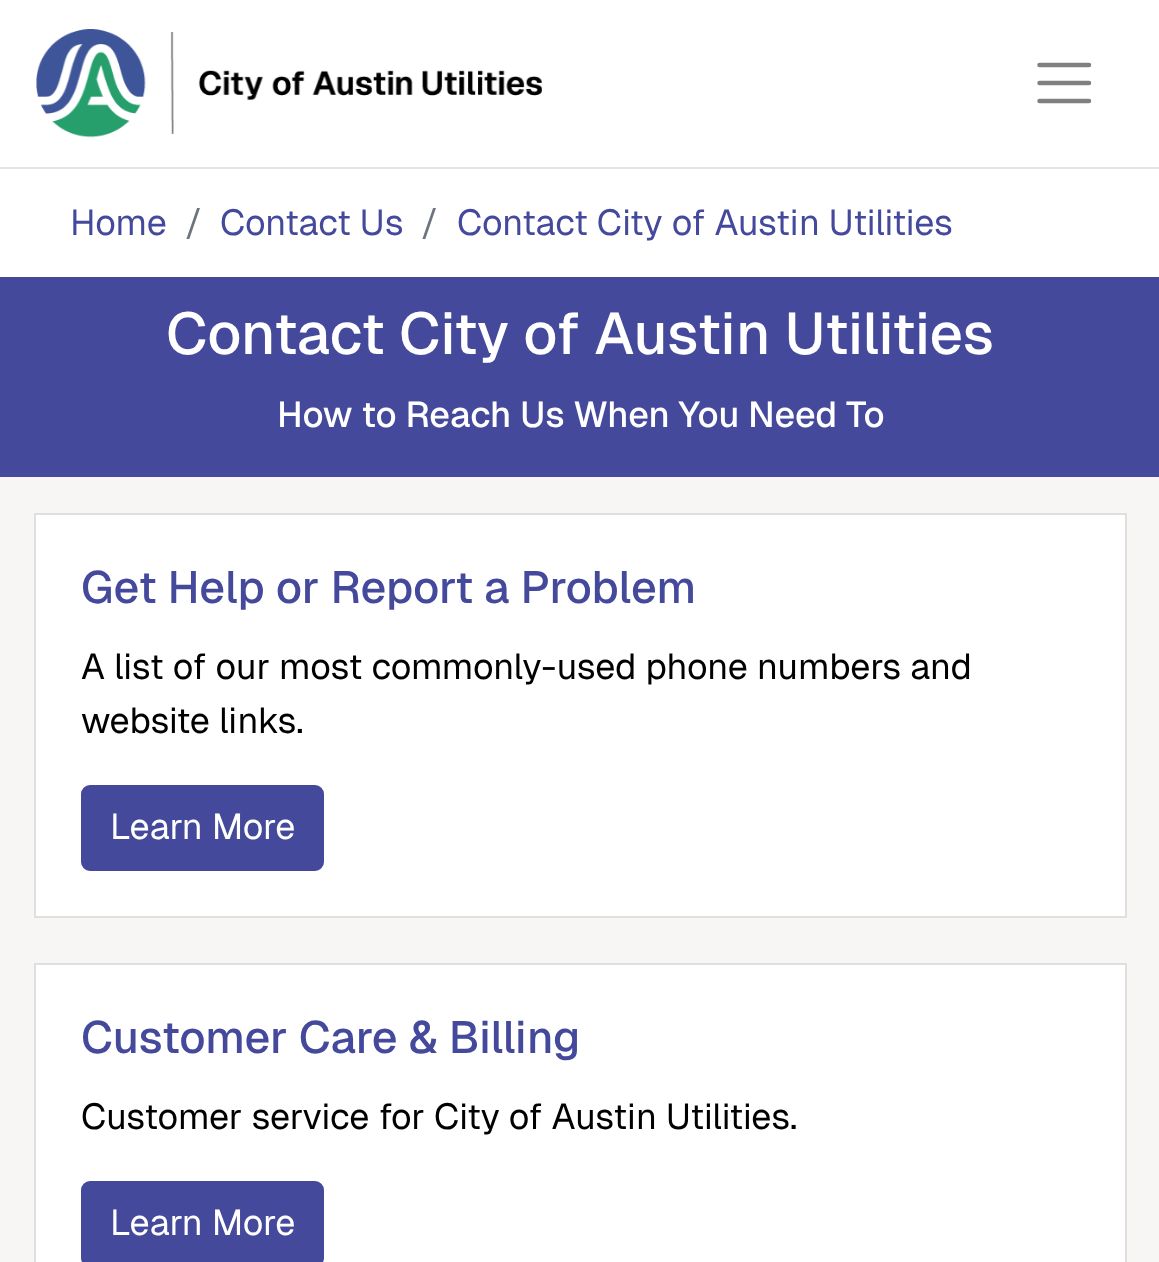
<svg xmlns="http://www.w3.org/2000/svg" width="1159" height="1262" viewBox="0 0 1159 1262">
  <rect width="100%" height="100%" fill="rgb(247,246,245)"/>
  <rect x="0" y="0" width="1159" height="167" fill="rgb(255,255,255)"/>
  <rect x="0" y="167" width="1159" height="2" fill="rgb(228,228,228)"/>
  <image x="36" y="29" width="506" height="109" href="pic1.png"/>
  <path d="M1039.5 65H1089M1039.5 83H1089M1039.5 101H1089" fill="none" stroke="rgb(128,128,128)" stroke-width="4.5" stroke-linecap="round"/>
  <rect x="0" y="169" width="1159" height="108" fill="rgb(255,255,255)"/>
  <text x="70" y="235" font-family="Geist" font-size="36" fill="rgb(68,73,156)">Home</text>
  <text x="185" y="235" font-family="Geist" font-size="36" fill="rgb(108,117,125)">/</text>
  <text x="220" y="235" font-family="Geist" font-size="36" fill="rgb(68,73,156)">Contact Us</text>
  <text x="421" y="235" font-family="Geist" font-size="36" fill="rgb(108,117,125)">/</text>
  <text x="457" y="235" font-family="Geist" font-size="36" fill="rgb(68,73,156)">Contact City of Austin Utilities</text>
  <rect x="0" y="277" width="1159" height="200" fill="rgb(68,73,156)"/>
  <text x="166" y="354" font-family="Geist" font-size="58.5" font-weight="500" fill="rgb(255,255,255)">Contact City of Austin Utilities</text>
  <text x="277" y="427" font-family="Geist" font-size="36" font-weight="500" fill="rgb(255,255,255)">How to Reach Us When You Need To</text>
  <rect x="35" y="514" width="1091" height="403" fill="rgb(255,255,255)" stroke="rgb(223,223,223)" stroke-width="2"/>
  <text x="81" y="603" font-family="Geist" font-size="45" font-weight="500" fill="rgb(68,73,156)">Get Help or Report a Problem</text>
  <g font-family="Geist" font-size="36" fill="rgb(0,0,0)">
    <text>
      <tspan x="81" y="679">A list of our most commonly-used phone numbers and</tspan>
      <tspan x="81" y="733">website links.</tspan>
    </text>
  </g>
  <rect x="82" y="786" width="241" height="84" rx="8" fill="rgb(68,73,156)" stroke="rgb(68,73,156)" stroke-width="2"/>
  <text x="110" y="839" font-family="Geist" font-size="36" fill="rgb(255,255,255)">Learn More</text>
  <rect x="35" y="964" width="1091" height="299" fill="rgb(255,255,255)" stroke="rgb(223,223,223)" stroke-width="2"/>
  <text x="81" y="1053" font-family="Geist" font-size="45" font-weight="500" fill="rgb(68,73,156)">Customer Care &amp; Billing</text>
  <text x="81" y="1129" font-family="Geist" font-size="36" fill="rgb(0,0,0)">Customer service for City of Austin Utilities.</text>
  <rect x="82" y="1182" width="241" height="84" rx="8" fill="rgb(68,73,156)" stroke="rgb(68,73,156)" stroke-width="2"/>
  <text x="110" y="1235" font-family="Geist" font-size="36" fill="rgb(255,255,255)">Learn More</text>
</svg>
